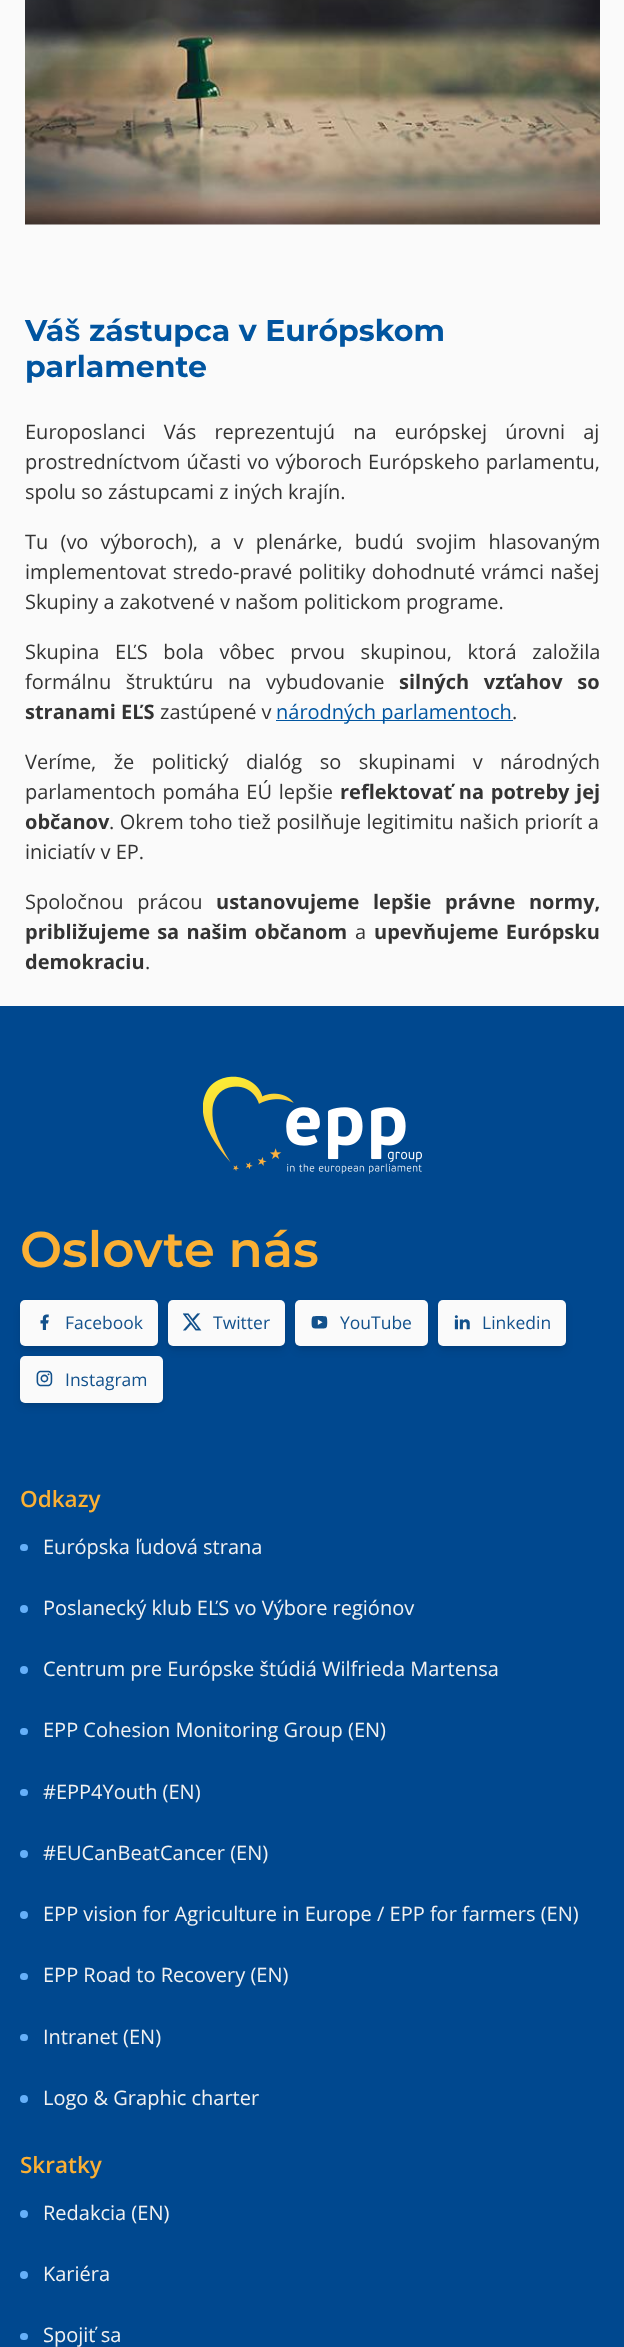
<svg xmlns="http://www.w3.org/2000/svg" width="624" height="2347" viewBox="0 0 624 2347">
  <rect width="100%" height="100%" fill="rgb(250,250,250)"/>
  <image x="25" y="0" width="575" height="225" href="pic1.png"/>
  <text x="25" y="341" font-family="Montserrat" font-size="30" font-weight="bold" fill="rgb(1,85,160)">Vá</text>
  <text x="64" y="341" font-family="Liberation Sans" font-size="30" font-weight="bold" fill="rgb(1,85,160)">š</text>
  <g font-family="Montserrat" font-size="30" font-weight="bold" fill="rgb(1,85,160)">
    <text x="89" y="341">zástupca v Európskom</text>
    <text x="25" y="377">parlamente</text>
  </g>
  <g font-family="Open Sans" font-size="20" fill="rgb(51,51,51)">
    <text>
      <tspan x="25" y="439" word-spacing="13">Europoslanci Vás reprezentujú na európskej úrovni aj</tspan>
      <tspan x="25" y="469" word-spacing="1">prostredníctvom účasti vo výboroch Európskeho parlamentu,</tspan>
      <tspan x="25" y="499">spolu so zástupcami z iných krajín.</tspan>
    </text>
    <text>
      <tspan x="25" y="549" word-spacing="7">Tu (vo výboroch), a v plenárke, budú svojim hlasovaným</tspan>
      <tspan x="25" y="579" word-spacing="1">implementovat stredo-pravé politiky dohodnuté vrámci našej</tspan>
      <tspan x="25" y="609">Skupiny a zakotvené v našom politickom programe.</tspan>
    </text>
    <text>
      <tspan x="25" y="659" word-spacing="10.5">Skupina EĽS bola vôbec prvou skupinou, ktorá založila</tspan>
      <tspan x="25" y="689" word-spacing="9.5">formálnu štruktúru na vybudovanie</tspan>
    </text>
  </g>
  <g font-family="Open Sans" font-size="20" font-weight="bold" fill="rgb(51,51,51)">
    <text x="399" y="689" word-spacing="9.5">silných vzťahov so</text>
    <text x="25" y="719">stranami EĽS</text>
  </g>
  <text x="160" y="719" font-family="Open Sans" font-size="20" fill="rgb(51,51,51)">zastúpené v</text>
  <rect x="276" y="720" width="237" height="1" fill="rgb(1,85,160)"/>
  <text x="276" y="719" font-family="Open Sans" font-size="20" fill="rgb(1,85,160)">národných parlamentoch</text>
  <g font-family="Open Sans" font-size="20" fill="rgb(51,51,51)">
    <text x="512" y="719">.</text>
    <text>
      <tspan x="25" y="769" word-spacing="12.25">Veríme, že politický dialóg so skupinami v národných</tspan>
      <tspan x="25" y="799" word-spacing="1.5">parlamentoch pomáha EÚ lepšie</tspan>
    </text>
  </g>
  <g font-family="Open Sans" font-size="20" font-weight="bold" fill="rgb(51,51,51)">
    <text x="340" y="799" word-spacing="1.5">reflektovať na potreby jej</text>
    <text x="25" y="829">občanov</text>
  </g>
  <g font-family="Open Sans" font-size="20" fill="rgb(51,51,51)">
    <text x="109" y="829" word-spacing="0.25">. Okrem toho tiež posilňuje legitimitu našich priorít a</text>
    <text x="25" y="859">iniciatív v EP.</text>
    <text x="25" y="909" word-spacing="8.5">Spoločnou prácou</text>
  </g>
  <g font-family="Open Sans" font-size="20" font-weight="bold" fill="rgb(51,51,51)">
    <text x="216" y="909" word-spacing="8.5">ustanovujeme lepšie právne normy,</text>
    <text x="25" y="939" word-spacing="2">približujeme sa našim občanom</text>
  </g>
  <text x="355" y="939" font-family="Open Sans" font-size="20" fill="rgb(51,51,51)">a</text>
  <g font-family="Open Sans" font-size="20" font-weight="bold" fill="rgb(51,51,51)">
    <text x="374" y="939" word-spacing="2">upevňujeme Európsku</text>
    <text x="25" y="969">demokraciu</text>
  </g>
  <text x="145" y="969" font-family="Open Sans" font-size="20" fill="rgb(51,51,51)">.</text>
  <rect x="0" y="1006" width="624" height="1341" fill="rgb(0,72,143)"/>
  <image x="203" y="1076" width="219" height="98" href="pic2.png"/>
  <text x="20" y="1267" font-family="Montserrat" font-size="50" font-weight="600" fill="rgb(251,176,52)">Oslovte nás</text>
  <rect x="21" y="1306" width="135" height="44" rx="4" fill="rgba(0,0,0,0.1)" filter="blur(4px)"/>
  <rect x="23" y="1305" width="132" height="41" rx="2.5" fill="rgba(0,0,0,0.1)" filter="blur(2.5px)"/>
  <rect x="20" y="1300" width="138" height="46" rx="5" fill="rgb(250,250,250)"/>
  <image x="40" y="1314" width="9" height="16" href="pic3.png"/>
  <text x="65" y="1329" font-family="Open Sans" font-size="17.5" fill="rgb(18,81,140)">Facebook</text>
  <rect x="169" y="1306" width="115" height="44" rx="4" fill="rgba(0,0,0,0.1)" filter="blur(4px)"/>
  <rect x="170" y="1305" width="113" height="41" rx="2.5" fill="rgba(0,0,0,0.1)" filter="blur(2.5px)"/>
  <rect x="168" y="1300" width="117" height="46" rx="5" fill="rgb(250,250,250)"/>
  <image x="183" y="1313" width="19" height="18" href="pic4.png"/>
  <text x="213" y="1329" font-family="Open Sans" font-size="17.5" fill="rgb(18,81,140)">Twitter</text>
  <rect x="296" y="1306" width="130" height="44" rx="4" fill="rgba(0,0,0,0.1)" filter="blur(4px)"/>
  <rect x="298" y="1305" width="127" height="41" rx="2.5" fill="rgba(0,0,0,0.1)" filter="blur(2.5px)"/>
  <rect x="295" y="1300" width="133" height="46" rx="5" fill="rgb(250,250,250)"/>
  <image x="311" y="1316" width="17" height="13" href="pic5.png"/>
  <text x="340" y="1329" font-family="Open Sans" font-size="17.5" fill="rgb(18,81,140)">YouTube</text>
  <rect x="439" y="1306" width="126" height="44" rx="4" fill="rgba(0,0,0,0.1)" filter="blur(4px)"/>
  <rect x="440" y="1305" width="124" height="41" rx="2.5" fill="rgba(0,0,0,0.1)" filter="blur(2.5px)"/>
  <rect x="438" y="1300" width="128" height="46" rx="5" fill="rgb(250,250,250)"/>
  <image x="454" y="1315" width="16" height="15" href="pic6.png"/>
  <text x="482" y="1329" font-family="Open Sans" font-size="17.5" fill="rgb(18,81,140)">Linkedin</text>
  <rect x="21" y="1363" width="140" height="43" rx="4" fill="rgba(0,0,0,0.1)" filter="blur(4px)"/>
  <rect x="23" y="1361" width="137" height="42" rx="2.5" fill="rgba(0,0,0,0.1)" filter="blur(2.5px)"/>
  <rect x="20" y="1356" width="143" height="47" rx="5" fill="rgb(250,250,250)"/>
  <image x="36" y="1370" width="17" height="17" href="pic7.png"/>
  <text x="65" y="1386" font-family="Open Sans" font-size="17.5" fill="rgb(18,81,140)">Instagram</text>
  <text x="20" y="1507" font-family="Open Sans" font-size="22.5" font-weight="600" fill="rgb(251,176,52)">Odkazy</text>
  <rect x="20" y="1544" width="8" height="7" rx="3.5" fill="rgb(102,176,249)"/>
  <text x="43" y="1554" font-family="Open Sans" font-size="20" fill="rgb(242,242,242)">Európska ľudová strana</text>
  <circle cx="24" cy="1609" r="4" fill="rgb(102,176,249)"/>
  <text x="43" y="1615" font-family="Open Sans" font-size="20" fill="rgb(242,242,242)">Poslanecký klub EĽS vo Výbore regiónov</text>
  <circle cx="24" cy="1670" r="4" fill="rgb(102,176,249)"/>
  <text x="43" y="1676" font-family="Open Sans" font-size="20" fill="rgb(242,242,242)">Centrum pre Európske štúdiá Wilfrieda Martensa</text>
  <rect x="20" y="1728" width="8" height="7" rx="3.5" fill="rgb(102,176,249)"/>
  <text x="43" y="1737" font-family="Open Sans" font-size="20" fill="rgb(242,242,242)">EPP Cohesion Monitoring Group (EN)</text>
  <rect x="20" y="1789" width="8" height="7" rx="3.5" fill="rgb(102,176,249)"/>
  <text x="43" y="1799" font-family="Open Sans" font-size="20" fill="rgb(242,242,242)">#EPP4Youth (EN)</text>
  <circle cx="24" cy="1854" r="4" fill="rgb(102,176,249)"/>
  <text x="43" y="1860" font-family="Open Sans" font-size="20" fill="rgb(242,242,242)">#EUCanBeatCancer (EN)</text>
  <circle cx="24" cy="1915" r="4" fill="rgb(102,176,249)"/>
  <text x="43" y="1921" font-family="Open Sans" font-size="20" fill="rgb(242,242,242)">EPP vision for Agriculture in Europe / EPP for farmers (EN)</text>
  <rect x="20" y="1973" width="8" height="7" rx="3.5" fill="rgb(102,176,249)"/>
  <text x="43" y="1982" font-family="Open Sans" font-size="20" fill="rgb(242,242,242)">EPP Road to Recovery (EN)</text>
  <rect x="20" y="2034" width="8" height="7" rx="3.5" fill="rgb(102,176,249)"/>
  <text x="43" y="2044" font-family="Open Sans" font-size="20" fill="rgb(242,242,242)">Intranet (EN)</text>
  <circle cx="24" cy="2099" r="4" fill="rgb(102,176,249)"/>
  <text x="43" y="2105" font-family="Open Sans" font-size="20" fill="rgb(242,242,242)">Logo &amp; Graphic charter</text>
  <text x="20" y="2173" font-family="Open Sans" font-size="22.5" font-weight="600" fill="rgb(251,176,52)">Skratky</text>
  <circle cx="24" cy="2214" r="4" fill="rgb(102,176,249)"/>
  <text x="43" y="2220" font-family="Open Sans" font-size="20" fill="rgb(242,242,242)">Redakcia (EN)</text>
  <circle cx="24" cy="2275" r="4" fill="rgb(102,176,249)"/>
  <text x="43" y="2281" font-family="Open Sans" font-size="20" fill="rgb(242,242,242)">Kariéra</text>
  <rect x="20" y="2333" width="8" height="7" rx="3.5" fill="rgb(102,176,249)"/>
  <text x="43" y="2342" font-family="Open Sans" font-size="20" fill="rgb(242,242,242)">Spojiť sa</text>
</svg>
